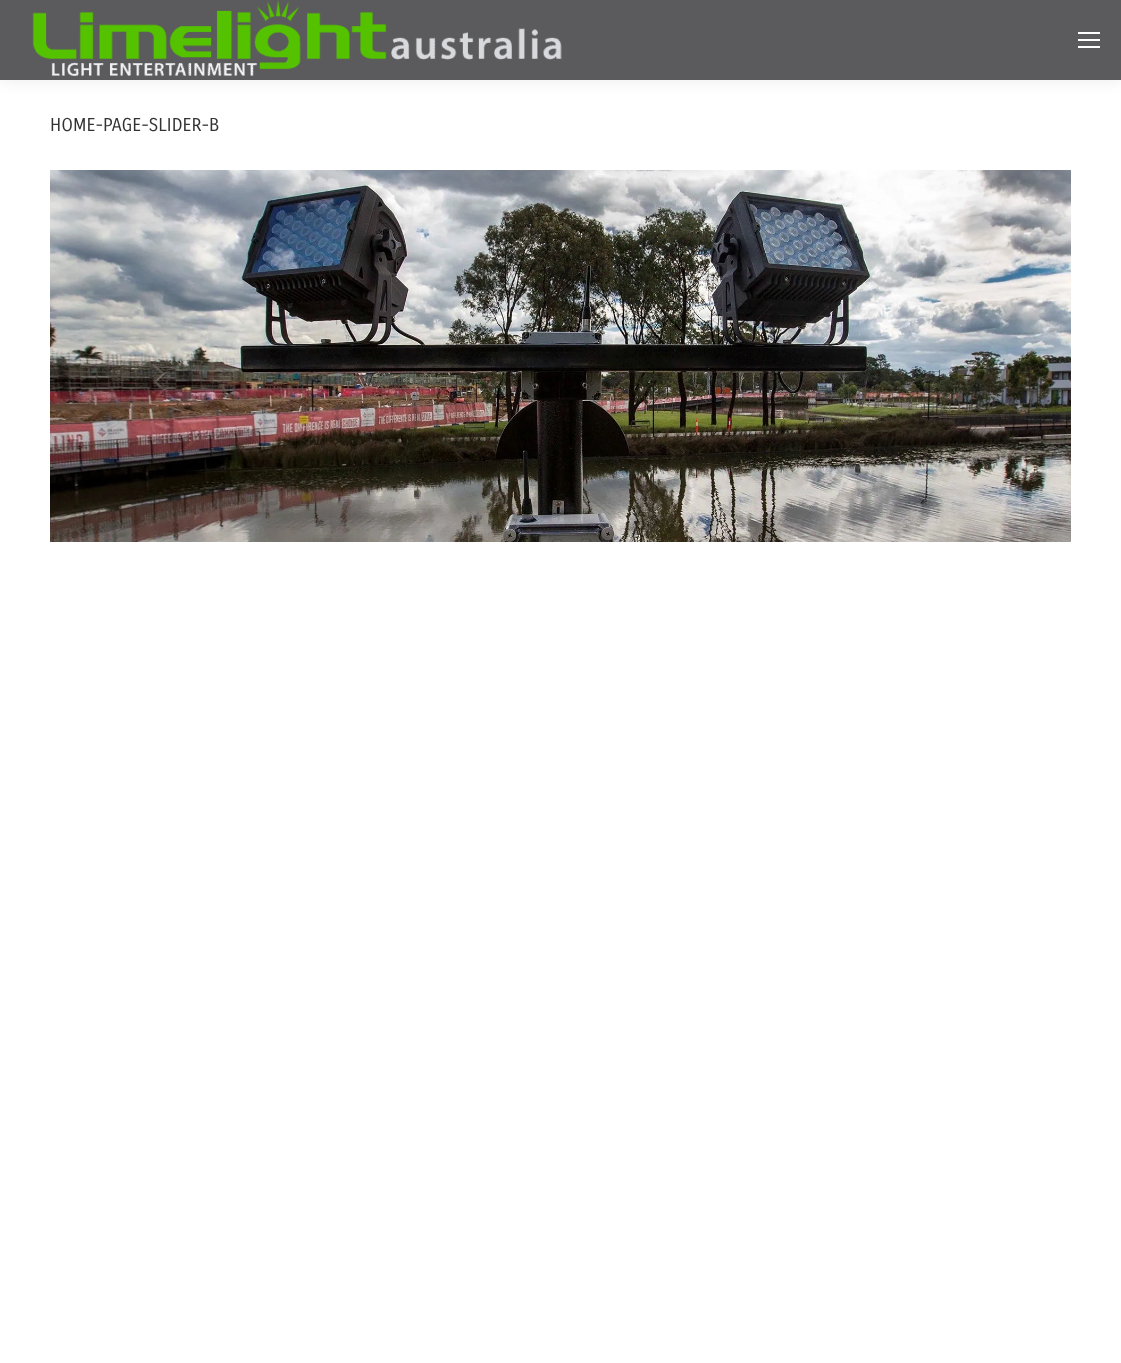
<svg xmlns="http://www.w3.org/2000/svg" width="1121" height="1363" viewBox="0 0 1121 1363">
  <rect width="100%" height="100%" fill="rgb(255,255,255)"/>
  <rect x="-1" y="-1" width="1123" height="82" fill="rgba(0,0,0,0.07)" filter="blur(7.5px)"/>
  <rect x="0" y="0" width="1121" height="80" fill="rgb(91,90,93)"/>
  <image x="32" y="0" width="530" height="76" href="pic1.png"/>
  <rect x="1078" y="32" width="22" height="2" fill="rgb(255,255,255)"/>
  <rect x="1078" y="39" width="22" height="2" fill="rgb(255,255,255)"/>
  <rect x="1078" y="46" width="22" height="2" fill="rgb(255,255,255)"/>
  <text x="50" y="131" font-family="Carrois Gothic" font-size="18" fill="rgb(51,51,51)">HOME-PAGE-SLIDER-B</text>
  <image x="50" y="170" width="1021" height="372" href="pic2.png"/>
</svg>
